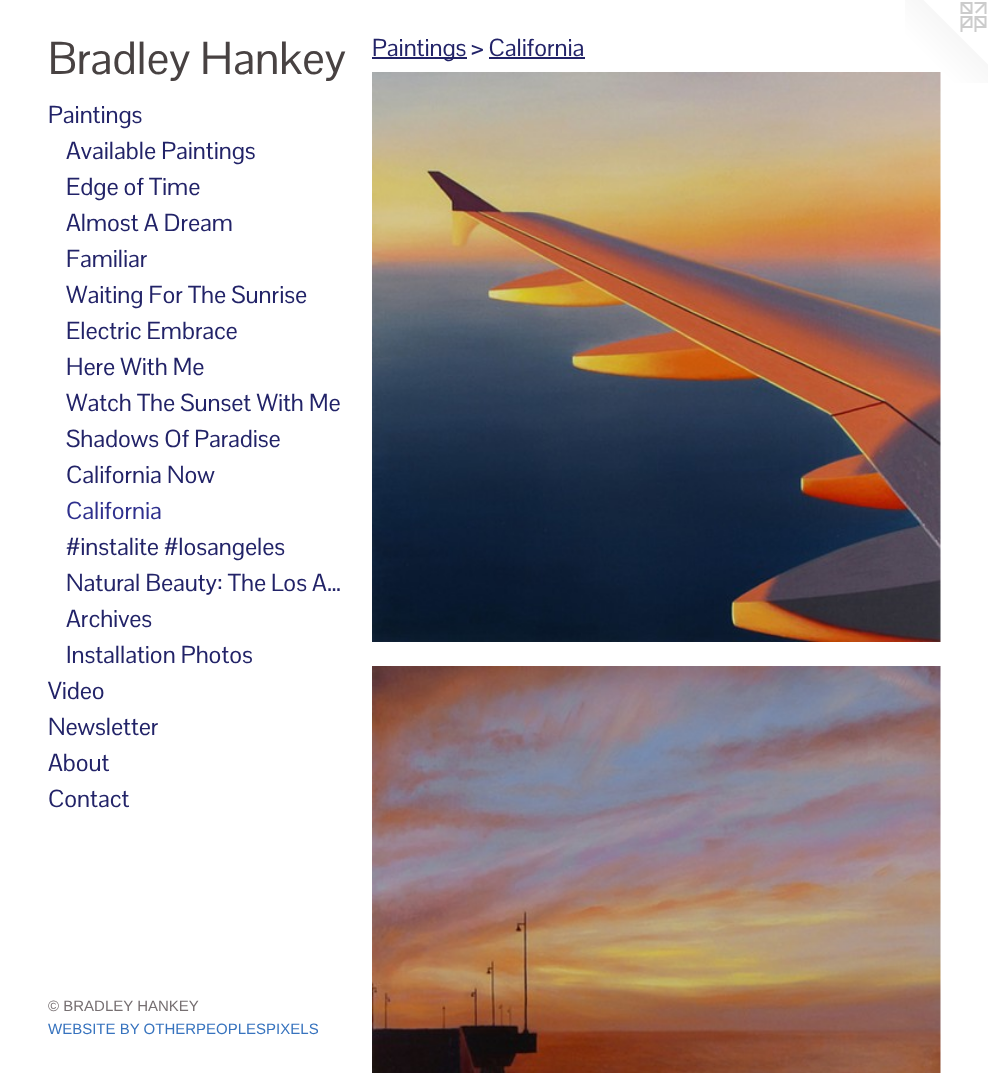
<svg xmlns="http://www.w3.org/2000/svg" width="988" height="1073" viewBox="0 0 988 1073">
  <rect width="100%" height="100%" fill="rgb(255,255,255)"/>
  <text x="48" y="74" font-family="Pontano Sans" font-size="45" fill="rgb(72,66,66)">Bradley Hankey</text>
  <g font-family="Pontano Sans" font-size="24" fill="rgb(34,35,104)">
    <text x="48" y="123">Paintings</text>
    <text>
      <tspan x="66" y="159">Available Paintings</tspan>
      <tspan x="66" y="195">Edge of Time</tspan>
      <tspan x="66" y="231">Almost A Dream</tspan>
      <tspan x="66" y="267">Familiar</tspan>
      <tspan x="66" y="303">Waiting For The Sunrise</tspan>
      <tspan x="66" y="339">Electric Embrace</tspan>
      <tspan x="66" y="375">Here With Me</tspan>
      <tspan x="66" y="411">Watch The Sunset With Me</tspan>
      <tspan x="66" y="447">Shadows Of Paradise</tspan>
      <tspan x="66" y="483">California Now</tspan>
    </text>
  </g>
  <text x="66" y="519" font-family="Pontano Sans" font-size="24" fill="rgb(47,48,142)">California</text>
  <g font-family="Pontano Sans" font-size="24" fill="rgb(34,35,104)">
    <text>
      <tspan x="66" y="555">#instalite #losangeles</tspan>
      <tspan x="66" y="591">Natural Beauty: The Los A…</tspan>
      <tspan x="66" y="627">Archives</tspan>
      <tspan x="66" y="663">Installation Photos</tspan>
    </text>
    <text>
      <tspan x="48" y="699">Video</tspan>
      <tspan x="48" y="735">Newsletter</tspan>
      <tspan x="48" y="771">About</tspan>
      <tspan x="48" y="807">Contact</tspan>
    </text>
  </g>
  <text x="48" y="1011" font-family="Liberation Sans" font-size="15" fill="rgb(118,111,113)">© BRADLEY HANKEY</text>
  <text x="48" y="1034" font-family="Liberation Sans" font-size="15" fill="rgb(55,115,190)">WEBSITE BY OTHERPEOPLESPIXELS</text>
  <rect x="372" y="57" width="95" height="2" fill="rgb(34,35,104)"/>
  <text x="372" y="56" font-family="Pontano Sans" font-size="24" fill="rgb(34,35,104)">Paintings &gt; California</text>
  <rect x="489" y="57" width="96" height="2" fill="rgb(34,35,104)"/>
  <image x="905" y="0" width="83" height="83" href="pic3.png"/>
  <image x="372" y="72" width="569" height="570" href="pic1.png"/>
  <image x="372" y="666" width="569" height="407" href="pic2.png"/>
</svg>
